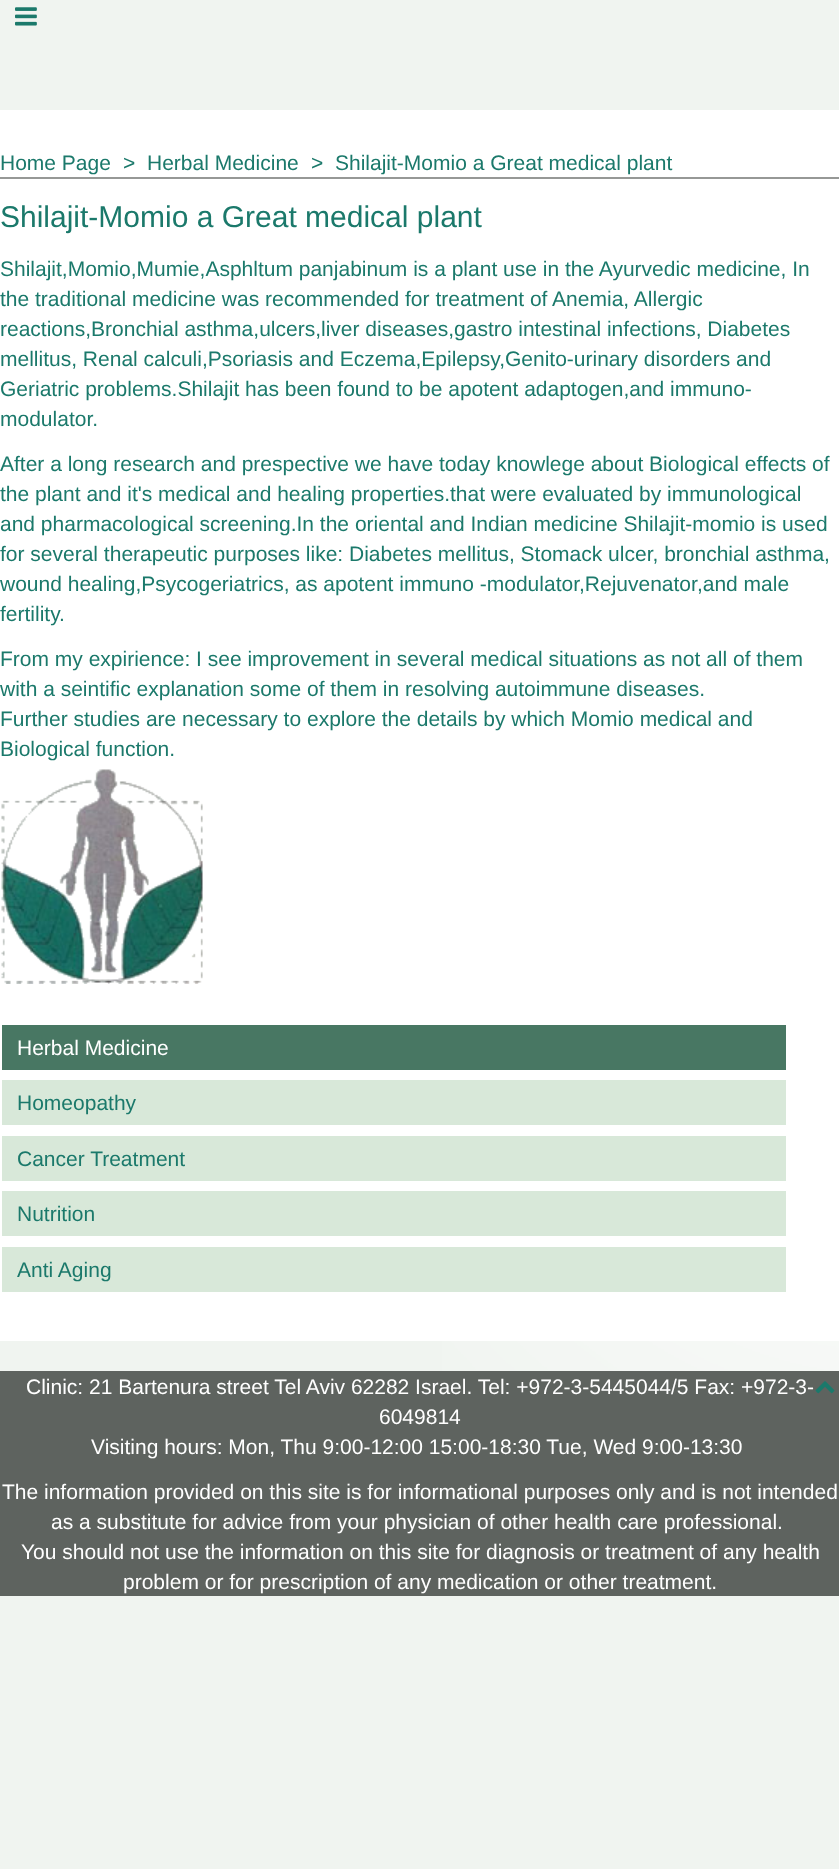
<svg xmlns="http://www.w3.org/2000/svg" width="839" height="1869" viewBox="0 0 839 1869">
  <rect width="100%" height="100%" fill="rgb(240,244,240)"/>
  <image x="442" y="1341" width="397" height="30" href="pic1.png"/>
  <image x="15" y="7" width="22" height="19" href="pic2.png"/>
  <rect x="0" y="110" width="839" height="1231" fill="rgb(255,255,255)"/>
  <rect x="0" y="177" width="839" height="2" fill="rgb(150,152,150)"/>
  <g font-family="Liberation Sans" font-size="21" fill="rgb(27,121,107)">
    <text x="0" y="170">Home Page</text>
    <text x="123" y="170">&gt;</text>
    <text x="147" y="170">Herbal Medicine</text>
    <text x="311" y="170">&gt;</text>
    <text x="335" y="170">Shilajit-Momio a Great medical plant</text>
  </g>
  <text x="0" y="227" font-family="Liberation Sans" font-size="30" fill="rgb(27,121,107)">Shilajit-Momio a Great medical plant</text>
  <g font-family="Liberation Sans" font-size="21" fill="rgb(27,121,107)">
    <text>
      <tspan x="0" y="276">Shilajit,Momio,Mumie,Asphltum panjabinum is a plant use in the Ayurvedic medicine, In</tspan>
      <tspan x="0" y="306">the traditional medicine was recommended for treatment of Anemia, Allergic</tspan>
      <tspan x="0" y="336">reactions,Bronchial asthma,ulcers,liver diseases,gastro intestinal infections, Diabetes</tspan>
      <tspan x="0" y="366">mellitus, Renal calculi,Psoriasis and Eczema,Epilepsy,Genito-urinary disorders and</tspan>
      <tspan x="0" y="396">Geriatric problems.Shilajit has been found to be apotent adaptogen,and immuno-</tspan>
      <tspan x="0" y="426">modulator.</tspan>
    </text>
    <text>
      <tspan x="0" y="471">After a long research and prespective we have today knowlege about Biological effects of</tspan>
      <tspan x="0" y="501">the plant and it's medical and healing properties.that were evaluated by immunological</tspan>
      <tspan x="0" y="531">and pharmacological screening.In the oriental and Indian medicine Shilajit-momio is used</tspan>
      <tspan x="0" y="561">for several therapeutic purposes like: Diabetes mellitus, Stomack ulcer, bronchial asthma,</tspan>
      <tspan x="0" y="591">wound healing,Psycogeriatrics, as apotent immuno -modulator,Rejuvenator,and male</tspan>
      <tspan x="0" y="621">fertility.</tspan>
    </text>
    <text>
      <tspan x="0" y="666">From my expirience: I see improvement in several medical situations as not all of them</tspan>
      <tspan x="0" y="696">with a seintific explanation some of them in resolving autoimmune diseases.</tspan>
      <tspan x="0" y="726">Further studies are necessary to explore the details by which Momio medical and</tspan>
      <tspan x="0" y="756">Biological function.</tspan>
    </text>
  </g>
  <image x="1" y="769" width="202" height="215" href="pic3.png"/>
  <rect x="2" y="1025" width="784" height="45" fill="rgb(72,119,99)"/>
  <text x="17" y="1055" font-family="Liberation Sans" font-size="21" fill="rgb(255,255,255)">Herbal Medicine</text>
  <rect x="2" y="1080" width="784" height="45" fill="rgb(216,232,217)"/>
  <text x="17" y="1110" font-family="Liberation Sans" font-size="21" fill="rgb(27,121,107)">Homeopathy</text>
  <rect x="2" y="1136" width="784" height="45" fill="rgb(216,232,217)"/>
  <text x="17" y="1166" font-family="Liberation Sans" font-size="21" fill="rgb(27,121,107)">Cancer Treatment</text>
  <rect x="2" y="1191" width="784" height="45" fill="rgb(216,232,217)"/>
  <text x="17" y="1221" font-family="Liberation Sans" font-size="21" fill="rgb(27,121,107)">Nutrition</text>
  <rect x="2" y="1247" width="784" height="45" fill="rgb(216,232,217)"/>
  <text x="17" y="1277" font-family="Liberation Sans" font-size="21" fill="rgb(27,121,107)">Anti Aging</text>
  <rect x="0" y="1371" width="839" height="225" fill="rgb(94,99,95)"/>
  <g font-family="Liberation Sans" font-size="21" fill="rgb(255,255,255)">
    <text x="26" y="1394">Clinic: 21 Bartenura street Tel Aviv 62282 Israel. Tel: +972-3-5445044/5 Fax: +972-3-</text>
    <text x="379" y="1424">6049814</text>
    <text x="91" y="1454">Visiting hours: Mon, Thu 9:00-12:00 15:00-18:30 Tue, Wed 9:00-13:30</text>
    <text x="2" y="1499">The information provided on this site is for informational purposes only and is not intended</text>
    <text x="51" y="1529">as a substitute for advice from your physician of other health care professional.</text>
    <text x="21" y="1559">You should not use the information on this site for diagnosis or treatment of any health</text>
    <text x="123" y="1589">problem or for prescription of any medication or other treatment.</text>
  </g>
  <image x="815" y="1381" width="20" height="13" href="pic4.png"/>
</svg>
